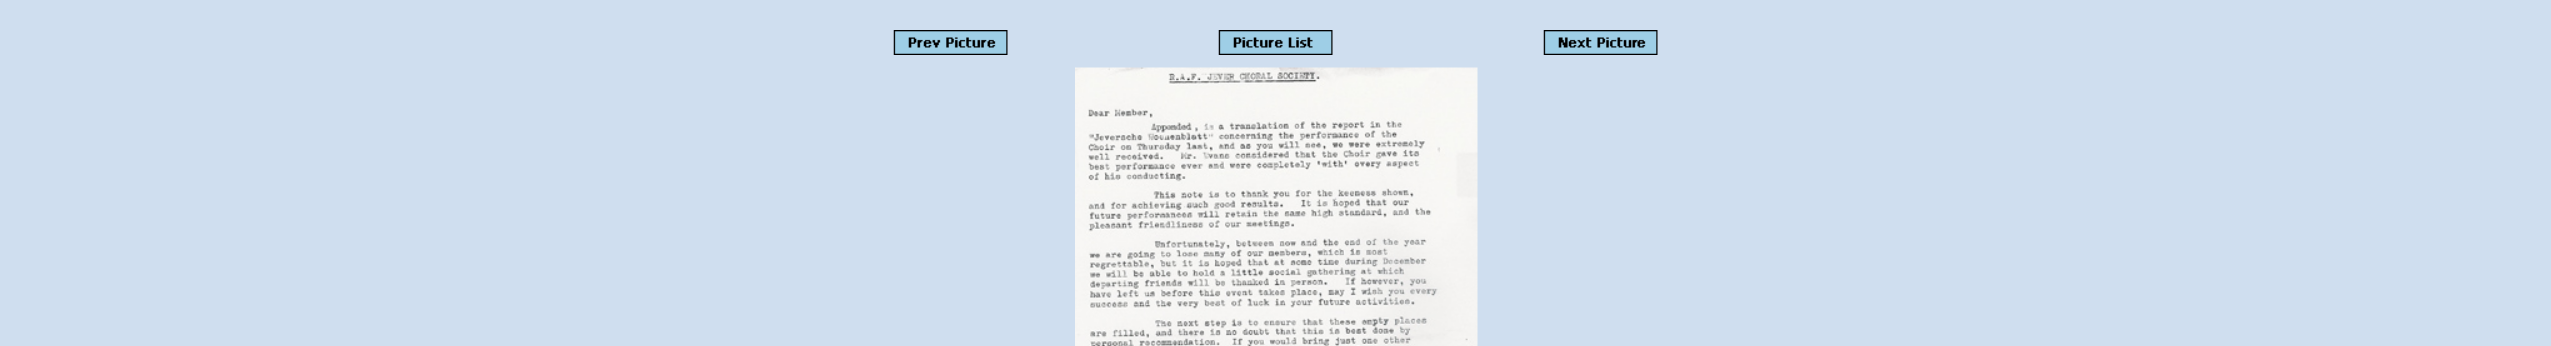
<svg xmlns="http://www.w3.org/2000/svg" width="2551" height="346" viewBox="0 0 2551 346">
  <rect width="100%" height="100%" fill="rgb(207,222,239)"/>
  <image x="893" y="30" width="115" height="25" href="pic1.png"/>
  <image x="1218" y="30" width="115" height="25" href="pic2.png"/>
  <image x="1543" y="30" width="115" height="25" href="pic3.png"/>
  <image x="1075" y="67" width="403" height="279" href="pic4.png"/>
</svg>
